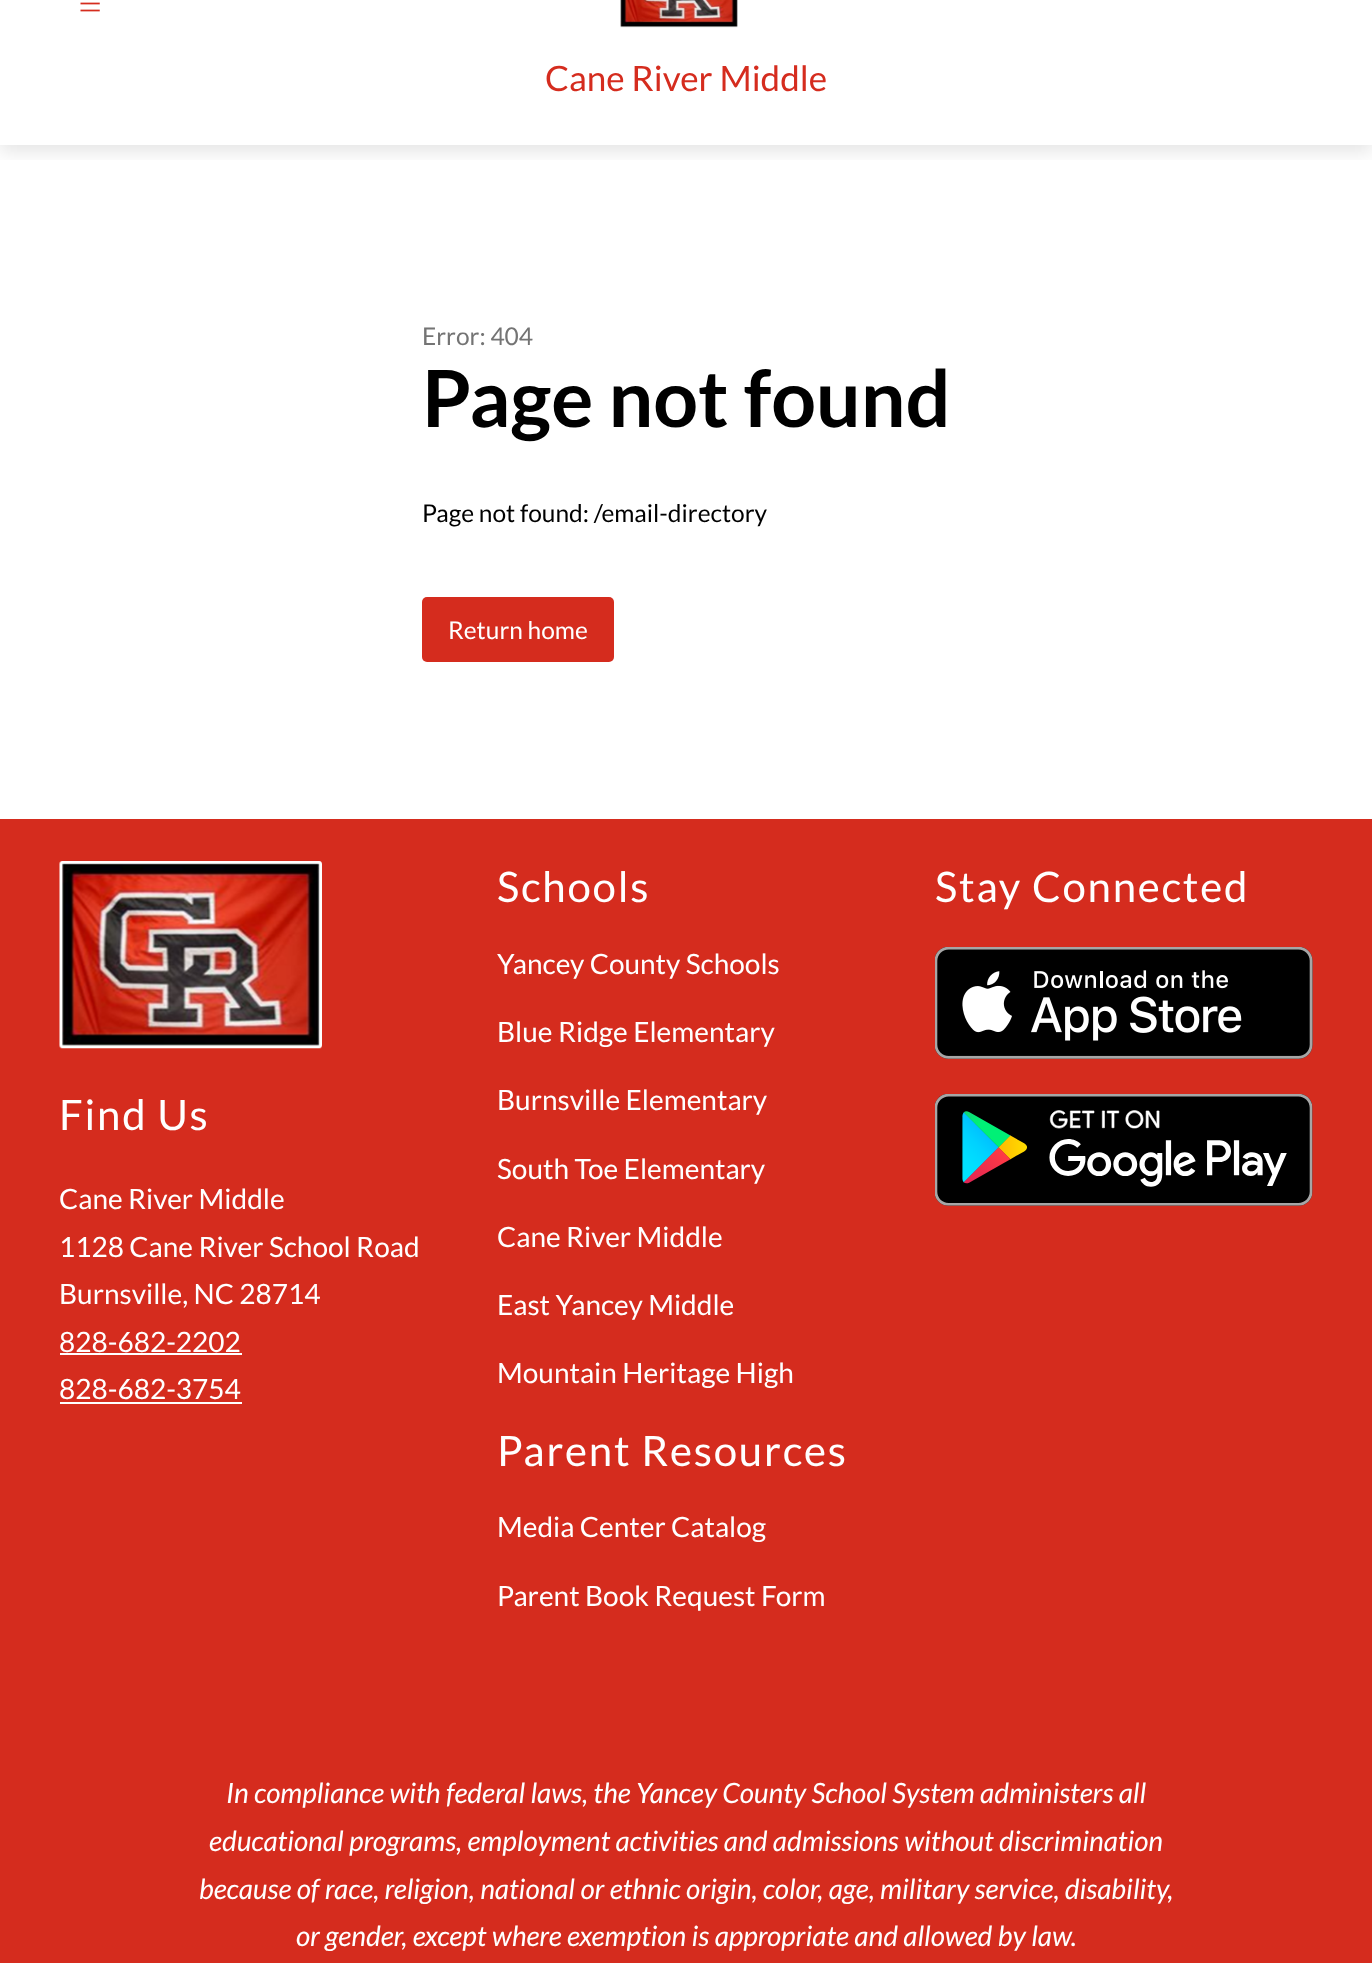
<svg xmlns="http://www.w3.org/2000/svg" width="1372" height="1963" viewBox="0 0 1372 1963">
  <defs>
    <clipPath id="clip1"><rect x="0" y="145" width="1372" height="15"/></clipPath>
  </defs>
  <rect width="100%" height="100%" fill="rgb(255,255,255)"/>
  <g clip-path="url(#clip1)">
    <rect x="0" y="-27" width="1372" height="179" fill="rgba(0,0,0,0.1)" filter="blur(9px)"/>
  </g>
  <image x="80" y="2" width="20" height="10" href="pic1.png"/>
  <image x="620" y="0" width="118" height="28" href="pic2.png"/>
  <text x="545" y="91" font-family="Lato" font-size="35" fill="rgb(213,44,30)">Cane River Middle</text>
  <text x="422" y="345" font-family="Lato" font-size="24.5" fill="rgb(116,116,116)">Error: 404</text>
  <text x="422" y="427" font-family="Lato" font-size="78.75" font-weight="bold" fill="rgb(0,0,0)">Page not found</text>
  <text x="422" y="522" font-family="Lato" font-size="24.5" fill="rgb(0,0,0)">Page not found: /email-directory</text>
  <rect x="422" y="597" width="192" height="65" rx="5" fill="rgb(213,44,30)"/>
  <text x="448" y="639" font-family="Lato" font-size="24.5" fill="rgb(255,255,255)">Return home</text>
  <rect x="0" y="819" width="1372" height="1144" fill="rgb(213,44,30)"/>
  <text x="497" y="902" font-family="Lato" font-size="42" letter-spacing="1.75" fill="rgb(255,255,255)">Schools</text>
  <g font-family="Lato" font-size="28" fill="rgb(255,255,255)">
    <text x="497" y="974">Yancey County Schools</text>
    <text x="497" y="1042">Blue Ridge Elementary</text>
    <text x="497" y="1110">Burnsville Elementary</text>
    <text x="497" y="1179">South Toe Elementary</text>
    <text x="497" y="1247">Cane River Middle</text>
    <text x="497" y="1315">East Yancey Middle</text>
    <text x="497" y="1383">Mountain Heritage High</text>
  </g>
  <text x="497" y="1466" font-family="Lato" font-size="42" letter-spacing="1.75" fill="rgb(255,255,255)">Parent Resources</text>
  <g font-family="Lato" font-size="28" fill="rgb(255,255,255)">
    <text x="497" y="1537">Media Center Catalog</text>
    <text x="497" y="1606">Parent Book Request Form</text>
  </g>
  <text x="935" y="902" font-family="Lato" font-size="42" letter-spacing="1.75" fill="rgb(255,255,255)">Stay Connected</text>
  <image x="935" y="947" width="378" height="112" href="pic3.png"/>
  <image x="935" y="1094" width="378" height="112" href="pic4.png"/>
  <image x="59" y="861" width="263" height="188" href="pic5.png"/>
  <text x="59" y="1130" font-family="Lato" font-size="42" letter-spacing="1.75" fill="rgb(255,255,255)">Find Us</text>
  <g font-family="Lato" font-size="28" fill="rgb(255,255,255)">
    <text>
      <tspan x="59" y="1209">Cane River Middle</tspan>
      <tspan x="59" y="1257">1128 Cane River School Road</tspan>
      <tspan x="59" y="1304">Burnsville, NC 28714</tspan>
      <tspan x="59" y="1352">828-682-2202</tspan>
    </text>
  </g>
  <rect x="60" y="1353" width="182" height="2" fill="rgb(255,255,255)"/>
  <text x="59" y="1399" font-family="Lato" font-size="28" fill="rgb(255,255,255)">828-682-3754</text>
  <rect x="60" y="1402" width="182" height="2" fill="rgb(255,255,255)"/>
  <g font-family="Lato" font-size="28" font-style="italic" fill="rgb(255,255,255)">
    <text x="226" y="1803">In compliance with federal laws, the Yancey County School System administers all</text>
    <text x="209" y="1851">educational programs, employment activities and admissions without discrimination</text>
    <text x="199" y="1899">because of race, religion, national or ethnic origin, color, age, military service, disability,</text>
    <text x="296" y="1946">or gender, except where exemption is appropriate and allowed by law.</text>
  </g>
</svg>
